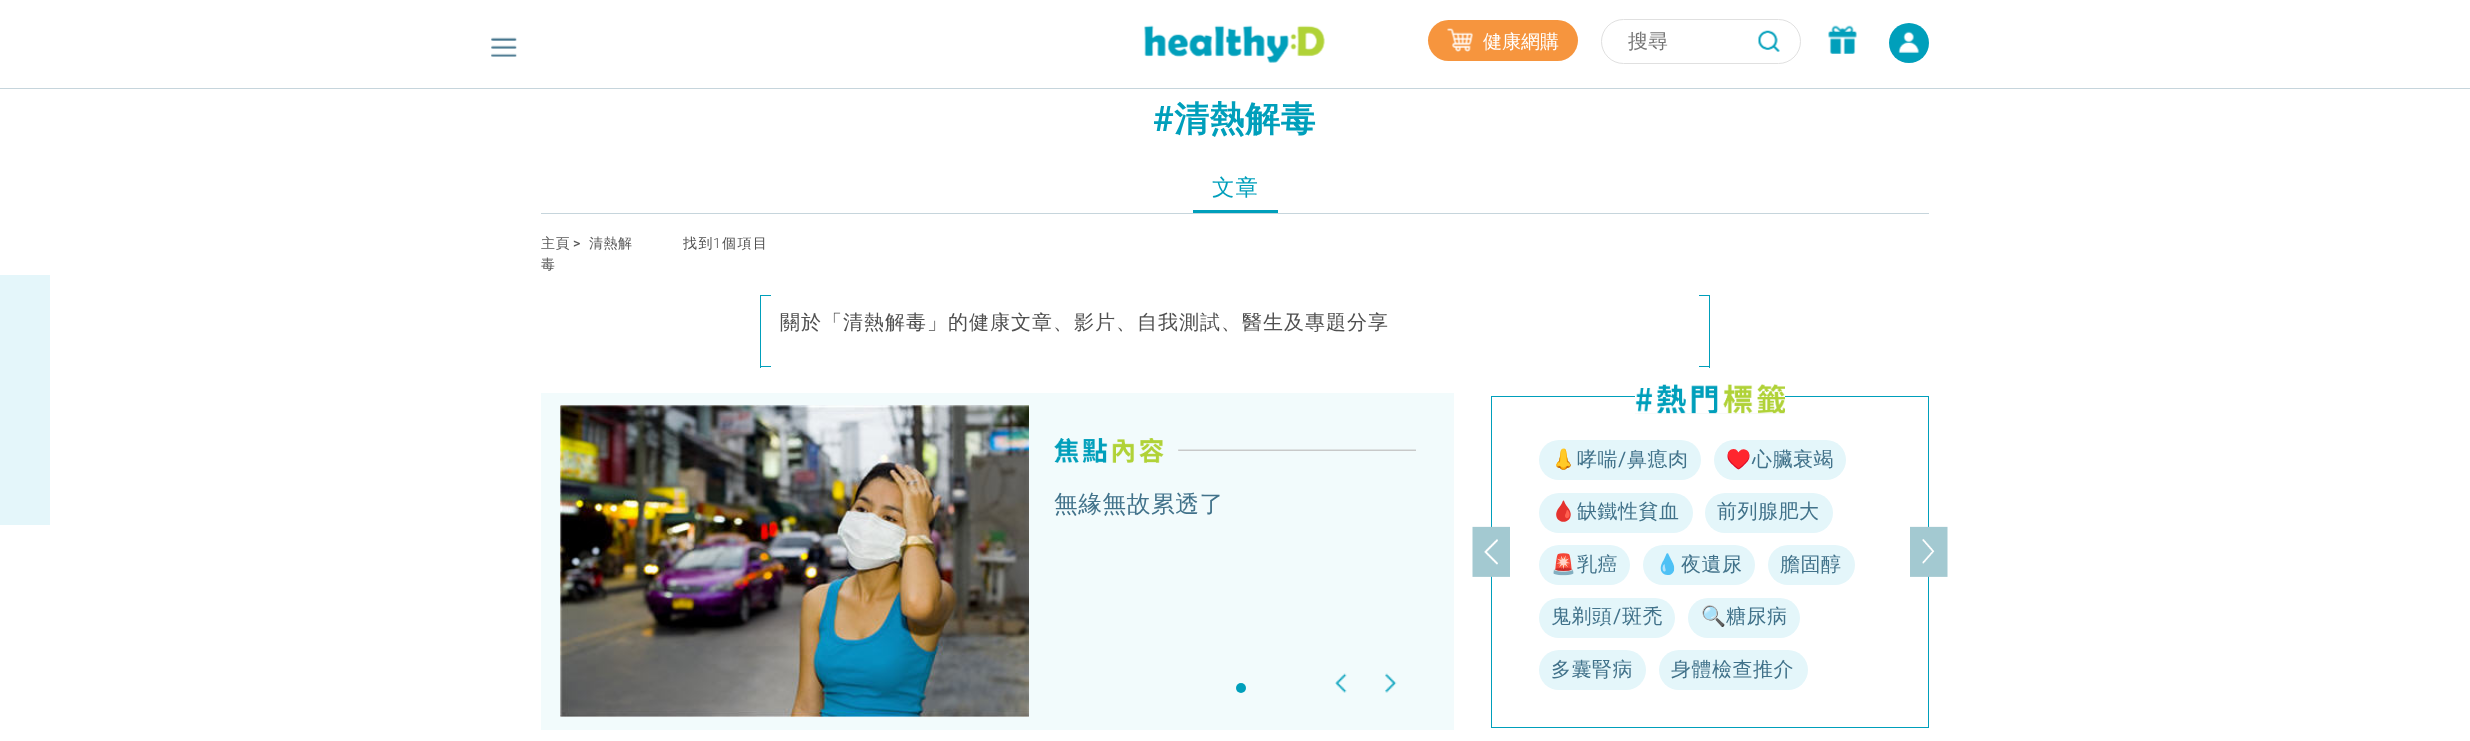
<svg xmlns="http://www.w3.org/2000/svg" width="2470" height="741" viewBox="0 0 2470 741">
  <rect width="100%" height="100%" fill="rgb(255,255,255)"/>
  <rect x="0" y="88" width="2470" height="1" fill="rgb(198,213,220)"/>
  <image x="491" y="37" width="26" height="20" href="pic1.png"/>
  <image x="1144" y="25" width="181" height="38" href="pic2.png"/>
  <rect x="1428" y="20" width="150" height="41" rx="20.5" fill="rgb(246,149,62)"/>
  <image x="1447" y="28" width="26" height="24" href="pic3.png"/>
  <text x="1483" y="48" font-family="WenQuanYi Zen Hei" font-size="19" font-weight="500" fill="rgb(255,255,255)">健康網購</text>
  <rect x="1601.5" y="19.5" width="199" height="44" rx="22" fill="none" stroke="rgb(224,224,224)"/>
  <text x="1628" y="48" font-family="WenQuanYi Zen Hei" font-size="20" font-weight="500" fill="rgb(117,117,117)">搜尋</text>
  <image x="1758" y="30" width="22" height="22" href="pic4.png"/>
  <image x="1828" y="25" width="29" height="29" href="pic5.png"/>
  <circle cx="1909" cy="43" r="20" fill="rgb(0,159,187)"/>
  <image x="1898" y="31" width="22" height="22" href="pic6.png"/>
  <rect x="0" y="275" width="50" height="250" fill="rgb(228,246,250)"/>
  <text x="1153" y="131" font-family="Roboto" font-size="35" font-weight="bold" letter-spacing="0.5" fill="rgb(0,159,187)">#</text>
  <text x="1174" y="131" font-family="WenQuanYi Zen Hei" font-size="35" font-weight="bold" letter-spacing="0.5" fill="rgb(0,159,187)">清熱解毒</text>
  <rect x="541" y="213" width="1388" height="1" fill="rgb(198,213,220)"/>
  <rect x="1193" y="210" width="85" height="3" fill="rgb(0,159,187)"/>
  <text x="1212" y="195" font-family="WenQuanYi Zen Hei" font-size="22.5" font-weight="500" letter-spacing="1" fill="rgb(0,159,187)">文章</text>
  <text x="541" y="248" font-family="WenQuanYi Zen Hei" font-size="14" font-weight="500" letter-spacing="0.5" fill="rgb(89,89,89)">主頁</text>
  <text x="573" y="248" font-family="Roboto" font-size="14" font-weight="500" letter-spacing="0.5" fill="rgb(89,89,89)">&gt;</text>
  <g font-family="WenQuanYi Zen Hei" font-size="14" font-weight="500" letter-spacing="0.5" fill="rgb(89,89,89)">
    <text x="589" y="248">清熱解</text>
    <text x="541" y="269">毒</text>
  </g>
  <text x="683" y="248" font-family="WenQuanYi Zen Hei" font-size="14" font-weight="500" letter-spacing="1.5" fill="rgb(79,79,79)">找到</text>
  <text x="713" y="248" font-family="Roboto" font-size="14" font-weight="300" letter-spacing="1.5" fill="rgb(79,79,79)">1</text>
  <text x="722" y="248" font-family="WenQuanYi Zen Hei" font-size="14" font-weight="500" letter-spacing="1.5" fill="rgb(79,79,79)">個項目</text>
  <rect x="1699" y="366" width="10" height="1" fill="rgb(0,159,187)"/>
  <rect x="761" y="366" width="10" height="1" fill="rgb(0,159,187)"/>
  <rect x="1699" y="295" width="10" height="1" fill="rgb(0,159,187)"/>
  <rect x="761" y="295" width="10" height="1" fill="rgb(0,159,187)"/>
  <rect x="1709" y="295" width="1" height="73" fill="rgb(0,159,187)"/>
  <rect x="760" y="295" width="1" height="73" fill="rgb(0,159,187)"/>
  <text x="780" y="329" font-family="WenQuanYi Zen Hei" font-size="20" font-weight="500" letter-spacing="1" fill="rgb(79,79,79)">關於「清熱解毒」的健康文章、影片、自我測試、醫生及專題分享</text>
  <rect x="541" y="393" width="913" height="337" fill="rgb(242,251,252)"/>
  <image x="560" y="405" width="469" height="312" href="pic7.png"/>
  <image x="1054" y="438" width="362" height="25" href="pic8.png"/>
  <text x="1054" y="512" font-family="WenQuanYi Zen Hei" font-size="23.75" font-weight="500" letter-spacing="0.5" fill="rgb(65,114,138)">無緣無故累透了</text>
  <circle cx="1241" cy="688" r="5" fill="rgb(0,159,187)"/>
  <image x="1335" y="673" width="12" height="20" href="pic9.png"/>
  <image x="1385" y="673" width="12" height="20" href="pic10.png"/>
  <rect x="1491.5" y="396.5" width="437" height="331" fill="none" stroke="rgb(0,159,187)"/>
  <rect x="1635" y="413" width="150" height="1" fill="rgb(246,248,249)"/>
  <image x="1635" y="384" width="150" height="30" href="pic11.png"/>
  <image x="1472" y="526" width="38" height="51" href="pic12.png"/>
  <rect x="1539" y="440" width="162" height="40" rx="20" fill="rgb(228,246,250)"/>
  <text x="1551" y="466" font-family="Noto Color Emoji" font-size="20" letter-spacing="0.5" fill="rgb(65,114,138)">👃</text>
  <text x="1577" y="466" font-family="WenQuanYi Zen Hei" font-size="20" font-weight="500" letter-spacing="0.5" fill="rgb(65,114,138)">哮喘</text>
  <text x="1618" y="466" font-family="Roboto" font-size="20" letter-spacing="0.5" fill="rgb(65,114,138)">/</text>
  <text x="1627" y="466" font-family="WenQuanYi Zen Hei" font-size="20" font-weight="500" letter-spacing="0.5" fill="rgb(65,114,138)">鼻瘜肉</text>
  <rect x="1714" y="440" width="132" height="40" rx="20" fill="rgb(228,246,250)"/>
  <text x="1726" y="466" font-family="Noto Color Emoji" font-size="20" letter-spacing="0.5" fill="rgb(65,114,138)">♥️</text>
  <text x="1752" y="466" font-family="WenQuanYi Zen Hei" font-size="20" font-weight="500" letter-spacing="0.5" fill="rgb(65,114,138)">心臟衰竭</text>
  <rect x="1539" y="493" width="154" height="40" rx="20" fill="rgb(228,246,250)"/>
  <text x="1551" y="518" font-family="Noto Color Emoji" font-size="20" letter-spacing="0.5" fill="rgb(65,114,138)">🩸</text>
  <text x="1577" y="518" font-family="WenQuanYi Zen Hei" font-size="20" font-weight="500" letter-spacing="0.5" fill="rgb(65,114,138)">缺鐵性貧血</text>
  <rect x="1705" y="493" width="128" height="40" rx="20" fill="rgb(228,246,250)"/>
  <text x="1717" y="518" font-family="WenQuanYi Zen Hei" font-size="20" font-weight="500" letter-spacing="0.5" fill="rgb(65,114,138)">前列腺肥大</text>
  <rect x="1539" y="545" width="91" height="40" rx="20" fill="rgb(228,246,250)"/>
  <text x="1551" y="571" font-family="Noto Color Emoji" font-size="20" letter-spacing="0.5" fill="rgb(65,114,138)">🚨</text>
  <text x="1577" y="571" font-family="WenQuanYi Zen Hei" font-size="20" font-weight="500" letter-spacing="0.5" fill="rgb(65,114,138)">乳癌</text>
  <rect x="1643" y="545" width="112" height="40" rx="20" fill="rgb(228,246,250)"/>
  <text x="1655" y="571" font-family="Noto Color Emoji" font-size="20" letter-spacing="0.5" fill="rgb(65,114,138)">💧</text>
  <text x="1681" y="571" font-family="WenQuanYi Zen Hei" font-size="20" font-weight="500" letter-spacing="0.5" fill="rgb(65,114,138)">夜遺尿</text>
  <rect x="1768" y="545" width="87" height="40" rx="20" fill="rgb(228,246,250)"/>
  <text x="1780" y="571" font-family="WenQuanYi Zen Hei" font-size="20" font-weight="500" letter-spacing="0.5" fill="rgb(65,114,138)">膽固醇</text>
  <rect x="1539" y="598" width="136" height="40" rx="20" fill="rgb(228,246,250)"/>
  <text x="1551" y="623" font-family="WenQuanYi Zen Hei" font-size="20" font-weight="500" letter-spacing="0.5" fill="rgb(65,114,138)">鬼剃頭</text>
  <text x="1613" y="623" font-family="Roboto" font-size="20" letter-spacing="0.5" fill="rgb(65,114,138)">/</text>
  <text x="1622" y="623" font-family="WenQuanYi Zen Hei" font-size="20" font-weight="500" letter-spacing="0.5" fill="rgb(65,114,138)">斑禿</text>
  <rect x="1688" y="598" width="112" height="40" rx="20" fill="rgb(228,246,250)"/>
  <text x="1701" y="623" font-family="Noto Color Emoji" font-size="20" letter-spacing="0.5" fill="rgb(65,114,138)">🔍</text>
  <text x="1726" y="623" font-family="WenQuanYi Zen Hei" font-size="20" font-weight="500" letter-spacing="0.5" fill="rgb(65,114,138)">糖尿病</text>
  <rect x="1539" y="650" width="107" height="40" rx="20" fill="rgb(228,246,250)"/>
  <text x="1551" y="676" font-family="WenQuanYi Zen Hei" font-size="20" font-weight="500" letter-spacing="0.5" fill="rgb(65,114,138)">多囊腎病</text>
  <rect x="1659" y="650" width="149" height="40" rx="20" fill="rgb(228,246,250)"/>
  <text x="1671" y="676" font-family="WenQuanYi Zen Hei" font-size="20" font-weight="500" letter-spacing="0.5" fill="rgb(65,114,138)">身體檢查推介</text>
  <image x="1910" y="526" width="38" height="51" href="pic13.png"/>
</svg>
